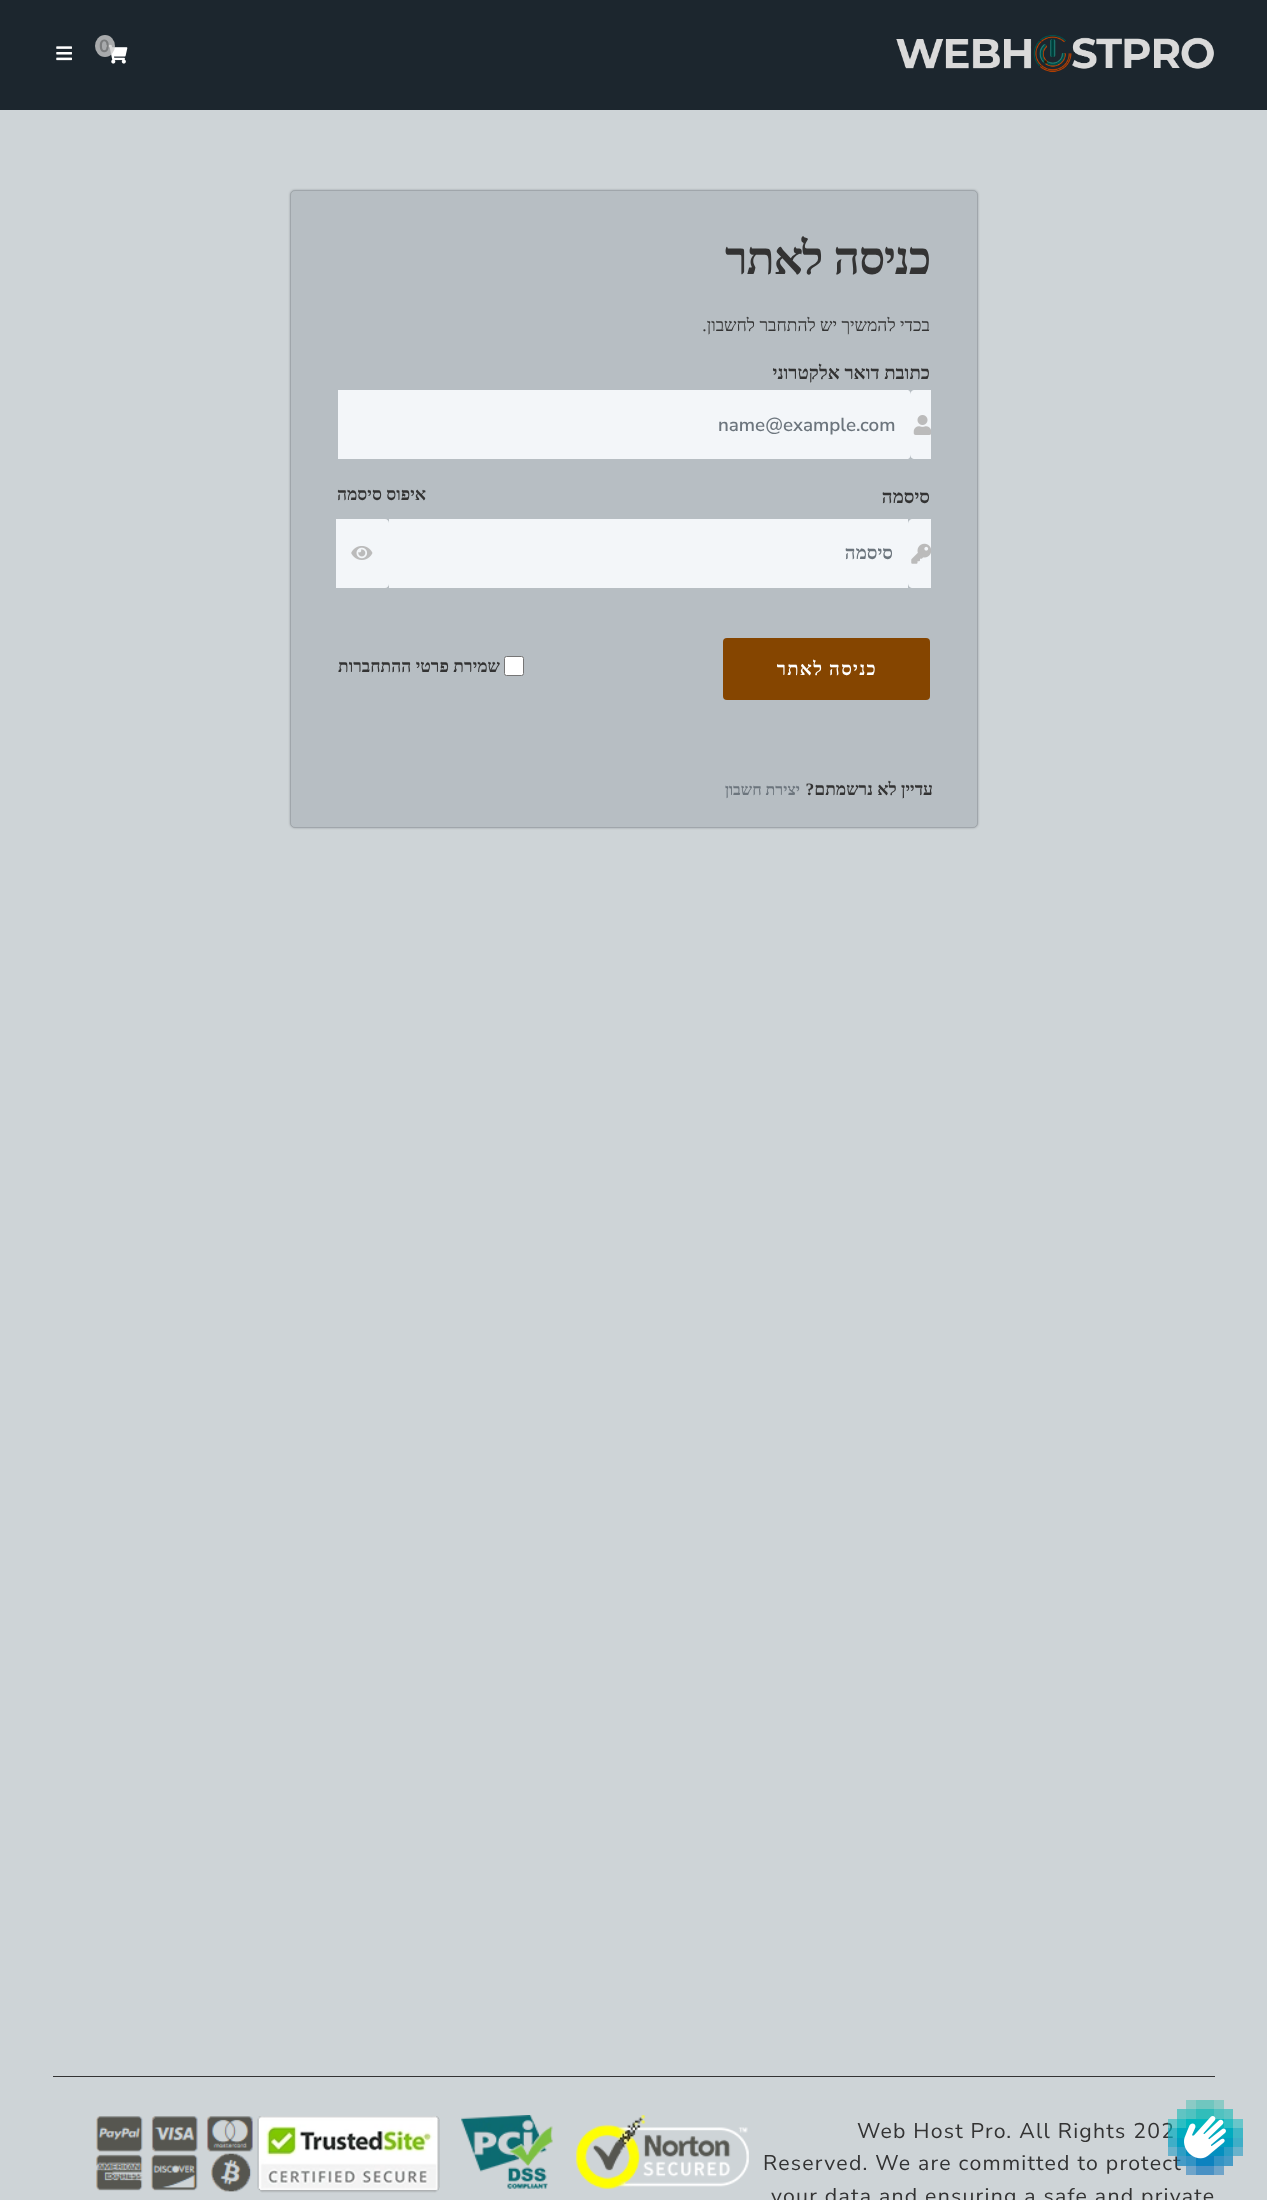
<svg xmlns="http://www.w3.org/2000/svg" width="1267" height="2200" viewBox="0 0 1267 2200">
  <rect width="100%" height="100%" fill="rgb(28,38,46)"/>
  <image x="896" y="35" width="318" height="38" href="pic1.png"/>
  <image x="106" y="44" width="22" height="20" href="pic2.png"/>
  <ellipse cx="105" cy="46" rx="10" ry="11" fill="rgba(204,204,204,0.8)"/>
  <text x="99" y="52" font-family="Nunito Sans" font-size="17.5" font-weight="bold" fill="rgb(122,124,125)">0</text>
  <image x="56" y="46" width="16" height="15" href="pic3.png"/>
  <rect x="0" y="110" width="1267" height="2090" fill="rgb(206,212,215)"/>
  <rect x="290" y="190" width="688" height="638" rx="5" fill="rgba(42,46,54,0.29)" filter="blur(1px)"/>
  <rect x="290" y="190" width="688" height="638" rx="5" fill="rgb(183,190,195)"/>
  <rect x="290.5" y="190.5" width="687" height="637" rx="4.5" fill="none" stroke="rgba(0,0,0,0.12)"/>
  <text x="930" y="274" word-spacing="1" font-family="Liberation Serif" font-size="46.25" font-weight="bold" letter-spacing="-1.25" direction="rtl" fill="rgb(51,51,51)">כניסה לאתר</text>
  <text x="930" y="331" font-family="Liberation Serif" font-size="17.5" direction="rtl" fill="rgb(51,51,51)">בכדי להמשיך יש להתחבר לחשבון.</text>
  <text x="930" y="379" font-family="Liberation Serif" font-size="18.75" font-weight="bold" direction="rtl" fill="rgb(51,51,51)">כתובת דואר אלקטרוני</text>
  <path d="M915 390H931V459H915C912 459 910 457 910 454V395C910 392 912 390 915 390Z" fill="rgb(243,246,249)"/>
  <image x="913" y="415" width="18" height="20" href="pic4.png"/>
  <path d="M338 390H907.5C909 390 910 391 910 392.5V456.5C910 458 909 459 907.5 459H338Z" fill="rgb(243,246,249)"/>
  <text x="718" y="431" font-family="Nunito Sans" font-size="18.75" font-weight="600" fill="rgb(108,117,125)">name@example.com</text>
  <text x="930" y="503" font-family="Liberation Serif" font-size="18.75" font-weight="bold" direction="rtl" fill="rgb(51,51,51)">סיסמה</text>
  <text x="426" y="500" font-family="Liberation Serif" font-size="17.5" font-weight="bold" direction="rtl" fill="rgb(51,51,51)">איפוס סיסמה</text>
  <path d="M913 519H931V588H913C910 588 908 586 908 583V524C908 521 910 519 913 519Z" fill="rgb(243,246,249)"/>
  <image x="911" y="543" width="20" height="21" href="pic5.png"/>
  <rect x="389" y="519" width="519" height="69" fill="rgb(243,246,249)"/>
  <text x="893" y="559" font-family="Liberation Serif" font-size="18.75" font-weight="bold" direction="rtl" fill="rgb(108,117,125)">סיסמה</text>
  <path d="M336 519H385C387 519 389 521 389 523V584C389 586 387 588 385 588H336Z" fill="rgb(243,246,249)"/>
  <image x="351" y="546" width="22" height="14" href="pic6.png"/>
  <rect x="723" y="638" width="207" height="62" rx="4" fill="rgb(133,69,0)"/>
  <text x="877" y="675" font-family="Liberation Serif" font-size="18.75" font-weight="bold" letter-spacing="1.25" direction="rtl" fill="rgb(255,255,255)">כניסה לאתר</text>
  <rect x="504.5" y="656.5" width="19" height="19" rx="2" fill="rgb(255,255,255)" stroke="rgb(118,118,118)"/>
  <g font-family="Liberation Serif" font-size="17.5" font-weight="bold" direction="rtl" fill="rgb(51,51,51)">
    <text x="500" y="672">שמירת פרטי ההתחברות</text>
    <text x="933" y="795">עדיין לא נרשמתם?</text>
  </g>
  <text x="800" y="795" font-family="Liberation Serif" font-size="16" font-weight="bold" direction="rtl" fill="rgb(108,117,125)">יצירת חשבון</text>
  <g font-family="Nunito Sans" font-size="21.25" letter-spacing="1.25" fill="rgb(51,51,51)">
    <text x="857" y="2138">Web Host Pro. All Rights 202</text>
    <text x="763" y="2170">Reserved. We are committed to protect</text>
  </g>
  <image x="1168" y="2100" width="75" height="75" href="pic7.png"/>
  <rect x="53" y="2076" width="1162" height="1" fill="rgb(51,51,51)"/>
  <text x="771" y="2203" font-family="Nunito Sans" font-size="21.25" letter-spacing="1.25" fill="rgb(51,51,51)">your data and ensuring a safe and private</text>
  <image x="576" y="2115" width="173" height="74" href="pic8.png"/>
  <image x="461" y="2115" width="92" height="74" href="pic9.png"/>
  <image x="257" y="2116" width="183" height="77" href="pic10.png"/>
  <image x="96" y="2116" width="157" height="76" href="pic11.png"/>
</svg>
